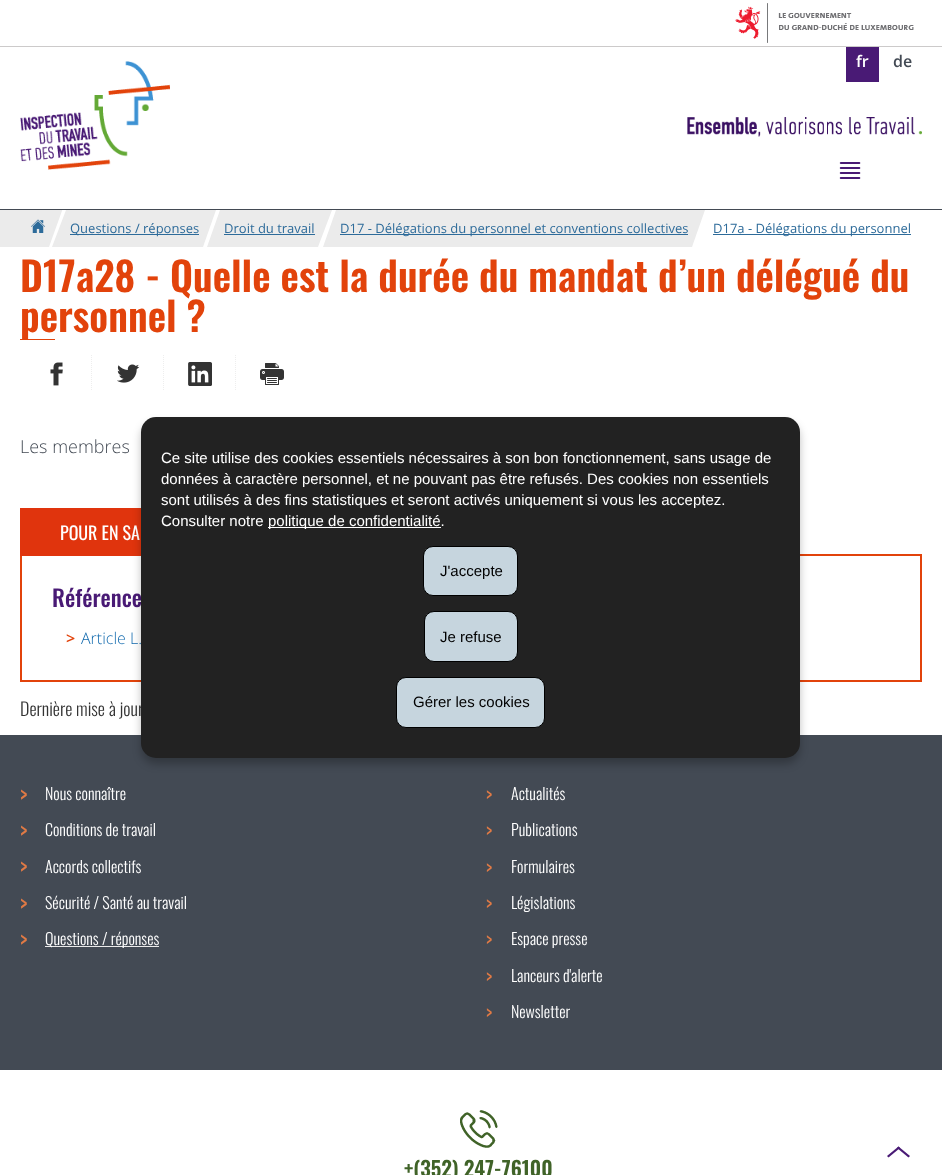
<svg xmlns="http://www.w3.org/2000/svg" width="942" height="1175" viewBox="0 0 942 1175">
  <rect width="100%" height="100%" fill="rgb(255,255,255)"/>
  <rect x="0" y="46" width="942" height="1" fill="rgb(204,202,202)"/>
  <image x="735" y="3" width="179" height="40" href="pic1.png"/>
  <path d="M-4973 208H63L49 247H-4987Z" fill="rgb(235,235,235)"/>
  <rect x="0" y="208" width="63" height="1" fill="rgb(255,255,255)"/>
  <rect x="0" y="209" width="942" height="1" fill="rgb(67,74,84)"/>
  <rect x="846" y="47" width="33" height="35" fill="rgb(73,26,117)"/>
  <text x="856" y="67" font-family="'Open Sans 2'" font-size="16" font-weight="600" fill="rgb(255,255,255)">fr</text>
  <text x="893" y="67" font-family="'Open Sans 2'" font-size="16" font-weight="600" fill="rgb(67,74,84)">de</text>
  <image x="20" y="61" width="150" height="109" href="pic2.png"/>
  <image x="687" y="117" width="235" height="20" href="pic3.png"/>
  <image x="839" y="162" width="22" height="17" href="pic4.png"/>
  <image x="31" y="219" width="14" height="14" href="pic5.png"/>
  <path d="M66 210H216L203 247H52Z" fill="rgb(235,235,235)"/>
  <rect x="70" y="234" width="129" height="1" fill="rgb(45,107,154)"/>
  <text x="70" y="233" font-family="Open Sans" font-size="13" fill="rgb(45,107,154)">Questions / réponses</text>
  <path d="M220 210H332L318 247H207Z" fill="rgb(235,235,235)"/>
  <text x="224" y="233" font-family="Open Sans" font-size="13" fill="rgb(45,107,154)">Droit du travail</text>
  <rect x="224" y="234" width="91" height="1" fill="rgb(45,107,154)"/>
  <path d="M336 210H705L692 247H323Z" fill="rgb(235,235,235)"/>
  <rect x="340" y="234" width="348" height="1" fill="rgb(45,107,154)"/>
  <text x="340" y="233" font-family="Open Sans" font-size="13" fill="rgb(45,107,154)">D17 - Délégations du personnel et conventions collectives</text>
  <rect x="713" y="234" width="198" height="1" fill="rgb(45,107,154)"/>
  <text x="713" y="233" font-family="Open Sans" font-size="13" fill="rgb(45,107,154)">D17a - Délégations du personnel</text>
  <g font-family="Oswald" font-size="40" font-weight="600" fill="rgb(226,67,11)">
    <text>
      <tspan x="20" y="292">D17a28 - Quelle est la durée du mandat d’un délégué du</tspan>
      <tspan x="20" y="332">personnel ?</tspan>
    </text>
  </g>
  <rect x="20" y="339" width="35" height="1" fill="rgb(226,67,11)"/>
  <image x="50" y="362" width="13" height="24" href="pic6.png"/>
  <path d="M91.5 355V390" fill="none" stroke="rgb(238,238,238)" stroke-dasharray="1 1"/>
  <image x="117" y="364" width="23" height="19" href="pic7.png"/>
  <path d="M163.5 355V390" fill="none" stroke="rgb(238,238,238)" stroke-dasharray="1 1"/>
  <image x="188" y="362" width="24" height="24" href="pic8.png"/>
  <path d="M235.5 355V390" fill="none" stroke="rgb(238,238,238)" stroke-dasharray="1 1"/>
  <image x="260" y="363" width="24" height="22" href="pic9.png"/>
  <text x="20" y="453" font-family="Open Sans" font-size="18" font-weight="300" fill="rgb(67,74,84)">Les membres</text>
  <rect x="21" y="555" width="900" height="126" fill="none" stroke="rgb(226,67,11)" stroke-width="2"/>
  <rect x="20" y="508" width="121" height="48" fill="rgb(224,52,13)"/>
  <text x="60" y="540" font-family="Oswald" font-size="18" fill="rgb(255,255,255)">POUR EN SA</text>
  <text x="52" y="607" font-family="Oswald" font-size="23" font-weight="500" fill="rgb(73,26,117)">Référence</text>
  <text x="66" y="644" font-family="Open Sans" font-size="16" font-weight="600" fill="rgb(226,67,11)">&gt;</text>
  <text x="81" y="644" font-family="Open Sans" font-size="16" font-weight="300" fill="rgb(18,106,174)">Article L.</text>
  <text x="20" y="716" font-family="Oswald" font-size="18" font-weight="300" fill="rgb(51,51,51)">Dernière mise à jour</text>
  <rect x="0" y="735" width="942" height="335" fill="rgb(67,74,84)"/>
  <text x="20" y="801" font-family="Oswald" font-size="19" font-weight="500" fill="rgb(224,122,69)">&gt;</text>
  <text x="45" y="800" font-family="Oswald" font-size="16" font-weight="300" fill="rgb(255,255,255)">Nous connaître</text>
  <text x="20" y="837" font-family="Oswald" font-size="19" font-weight="500" fill="rgb(224,122,69)">&gt;</text>
  <text x="45" y="836" font-family="Oswald" font-size="16" font-weight="300" fill="rgb(255,255,255)">Conditions de travail</text>
  <text x="20" y="873" font-family="Oswald" font-size="19" font-weight="500" fill="rgb(224,122,69)">&gt;</text>
  <text x="45" y="873" font-family="Oswald" font-size="16" font-weight="300" fill="rgb(255,255,255)">Accords collectifs</text>
  <text x="20" y="910" font-family="Oswald" font-size="19" font-weight="500" fill="rgb(224,122,69)">&gt;</text>
  <text x="45" y="909" font-family="Oswald" font-size="16" font-weight="300" fill="rgb(255,255,255)">Sécurité / Santé au travail</text>
  <text x="20" y="946" font-family="Oswald" font-size="19" font-weight="500" fill="rgb(224,122,69)">&gt;</text>
  <rect x="45" y="946" width="114" height="1" fill="rgb(235,235,235)"/>
  <text x="45" y="945" font-family="Oswald" font-size="16" font-weight="300" fill="rgb(255,255,255)">Questions / réponses</text>
  <text x="486" y="800" font-family="Oswald" font-size="16" font-weight="500" fill="rgb(224,122,69)">&gt;</text>
  <text x="511" y="800" font-family="Oswald" font-size="16" font-weight="300" fill="rgb(255,255,255)">Actualités</text>
  <text x="486" y="836" font-family="Oswald" font-size="16" font-weight="500" fill="rgb(224,122,69)">&gt;</text>
  <text x="511" y="836" font-family="Oswald" font-size="16" font-weight="300" fill="rgb(255,255,255)">Publications</text>
  <text x="486" y="873" font-family="Oswald" font-size="16" font-weight="500" fill="rgb(224,122,69)">&gt;</text>
  <text x="511" y="873" font-family="Oswald" font-size="16" font-weight="300" fill="rgb(255,255,255)">Formulaires</text>
  <text x="486" y="909" font-family="Oswald" font-size="16" font-weight="500" fill="rgb(224,122,69)">&gt;</text>
  <text x="511" y="909" font-family="Oswald" font-size="16" font-weight="300" fill="rgb(255,255,255)">Législations</text>
  <text x="486" y="945" font-family="Oswald" font-size="16" font-weight="500" fill="rgb(224,122,69)">&gt;</text>
  <text x="511" y="945" font-family="Oswald" font-size="16" font-weight="300" fill="rgb(255,255,255)">Espace presse</text>
  <text x="486" y="982" font-family="Oswald" font-size="16" font-weight="500" fill="rgb(224,122,69)">&gt;</text>
  <text x="511" y="982" font-family="Oswald" font-size="16" font-weight="300" fill="rgb(255,255,255)">Lanceurs d'alerte</text>
  <text x="486" y="1018" font-family="Oswald" font-size="16" font-weight="500" fill="rgb(224,122,69)">&gt;</text>
  <text x="511" y="1018" font-family="Oswald" font-size="16" font-weight="300" fill="rgb(255,255,255)">Newsletter</text>
  <image x="460" y="1110" width="38" height="38" href="pic10.png"/>
  <text x="404" y="1177" font-family="Oswald" font-size="21" font-weight="600" fill="rgb(64,99,40)">+(352) 247-76100</text>
  <path d="M887 1156L898.5 1146.5L900 1148L888.5 1157.5Z" fill="rgb(73,26,117)"/>
  <path d="M898.5 1146.5L910 1156L908.5 1157.5L897 1148Z" fill="rgb(73,26,117)"/>
  <rect x="141" y="423" width="659" height="341" rx="15" fill="rgba(0,0,0,0.25)" filter="blur(4.5px)"/>
  <rect x="141" y="417" width="659" height="341" rx="15" fill="rgb(34,34,34)"/>
  <g font-family="Liberation Sans" font-size="15" fill="rgb(255,255,255)">
    <text>
      <tspan x="161" y="463">Ce site utilise des cookies essentiels nécessaires à son bon fonctionnement, sans usage de</tspan>
      <tspan x="161" y="484">données à caractère personnel, et ne pouvant pas être refusés. Des cookies non essentiels</tspan>
      <tspan x="161" y="505">sont utilisés à des fins statistiques et seront activés uniquement si vous les acceptez.</tspan>
      <tspan x="161" y="526">Consulter notre</tspan>
    </text>
  </g>
  <rect x="268" y="527" width="173" height="1" fill="rgb(255,255,255)"/>
  <text x="268" y="526" font-family="Liberation Sans" font-size="15" fill="rgb(255,255,255)">politique de confidentialité.</text>
  <rect x="423.5" y="546.5" width="94" height="49" rx="9.5" fill="rgb(198,213,222)" stroke="rgb(0,0,0)"/>
  <text x="440" y="576" font-family="Liberation Sans" font-size="15" fill="rgb(0,0,0)">J'accepte</text>
  <rect x="424.5" y="611.5" width="93" height="50" rx="9.5" fill="rgb(198,213,222)" stroke="rgb(0,0,0)"/>
  <text x="440" y="642" font-family="Liberation Sans" font-size="15" fill="rgb(0,0,0)">Je refuse</text>
  <rect x="396.5" y="677.5" width="148" height="50" rx="9.5" fill="rgb(198,213,222)" stroke="rgb(0,0,0)"/>
  <text x="413" y="707" font-family="Liberation Sans" font-size="15" fill="rgb(0,0,0)">Gérer les cookies</text>
</svg>
